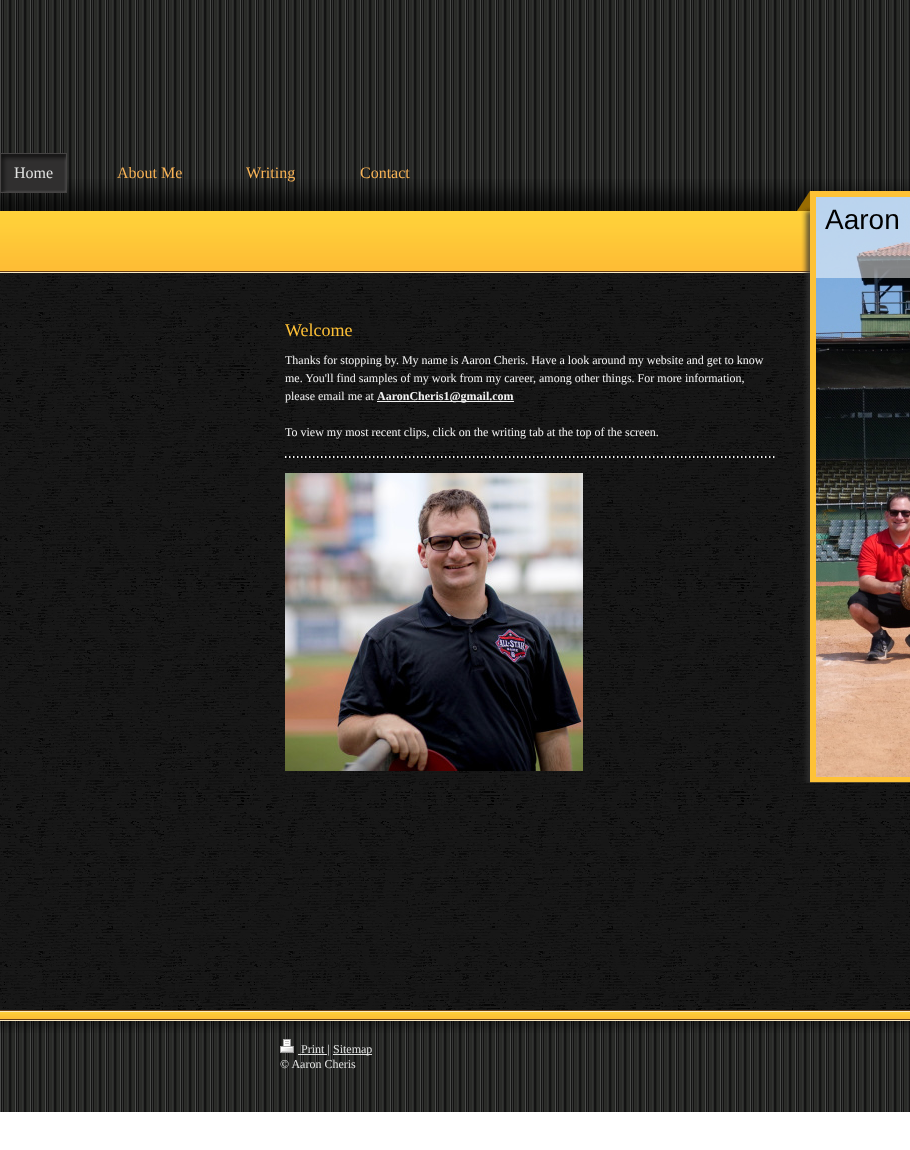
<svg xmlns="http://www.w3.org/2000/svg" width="910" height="1150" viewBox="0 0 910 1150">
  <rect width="100%" height="100%" fill="rgb(255,255,255)"/>
  <image x="0" y="0" width="910" height="1112" href="pic1.png"/>
  <image x="0" y="179" width="910" height="94" href="pic4.png"/>
  <image x="0" y="153" width="67" height="40" href="pic2.png"/>
  <image x="64" y="154" width="3" height="38" href="pic3.png"/>
  <text x="14" y="178" font-family="Liberation Serif" font-size="16" fill="rgb(225,226,225)">Home</text>
  <g font-family="Liberation Serif" font-size="16" fill="rgb(248,179,86)">
    <text x="117" y="178">About Me</text>
    <text x="246" y="178">Writing</text>
    <text x="360" y="178">Contact</text>
  </g>
  <image x="0" y="273" width="910" height="737" href="pic5.png"/>
  <image x="797" y="191" width="113" height="592" href="pic6.png"/>
  <image x="816" y="197" width="94" height="580" href="pic7.png"/>
  <rect x="816" y="197" width="94" height="81" fill="rgba(255,255,255,0.5)"/>
  <text x="825" y="229" font-family="Liberation Sans" font-size="28" fill="rgb(0,0,0)">Aaron</text>
  <text x="285" y="336" font-family="Liberation Serif" font-size="18" fill="rgb(254,192,54)">Welcome</text>
  <g font-family="Liberation Serif" font-size="12" fill="rgb(242,242,242)">
    <text>
      <tspan x="285" y="364">Thanks for stopping by. My name is Aaron Cheris. Have a look around my website and get to know</tspan>
      <tspan x="285" y="382">me. You'll find samples of my work from my career, among other things. For more information,</tspan>
      <tspan x="285" y="400">please email me at</tspan>
    </text>
  </g>
  <rect x="377" y="401" width="137" height="1" fill="rgb(242,242,242)"/>
  <text x="377" y="400" font-family="Liberation Serif" font-size="12" font-weight="bold" fill="rgb(242,242,242)">AaronCheris1@gmail.com</text>
  <text x="285" y="436" font-family="Liberation Serif" font-size="12" fill="rgb(242,242,242)">To view my most recent clips, click on the writing tab at the top of the screen.</text>
  <image x="285" y="456" width="490" height="2" href="pic8.png"/>
  <image x="285" y="473" width="298" height="298" href="pic9.png"/>
  <image x="0" y="1010" width="910" height="23" href="pic10.png"/>
  <image x="280" y="1039" width="14" height="14" href="pic11.png"/>
  <rect x="298" y="1054" width="29" height="1" fill="rgb(225,226,225)"/>
  <text x="301" y="1053" font-family="Liberation Serif" font-size="12" fill="rgb(225,226,225)">Print |</text>
  <rect x="333" y="1054" width="39" height="1" fill="rgb(225,226,225)"/>
  <g font-family="Liberation Serif" font-size="12" fill="rgb(225,226,225)">
    <text x="333" y="1053">Sitemap</text>
    <text x="280" y="1068">© Aaron Cheris</text>
  </g>
</svg>
